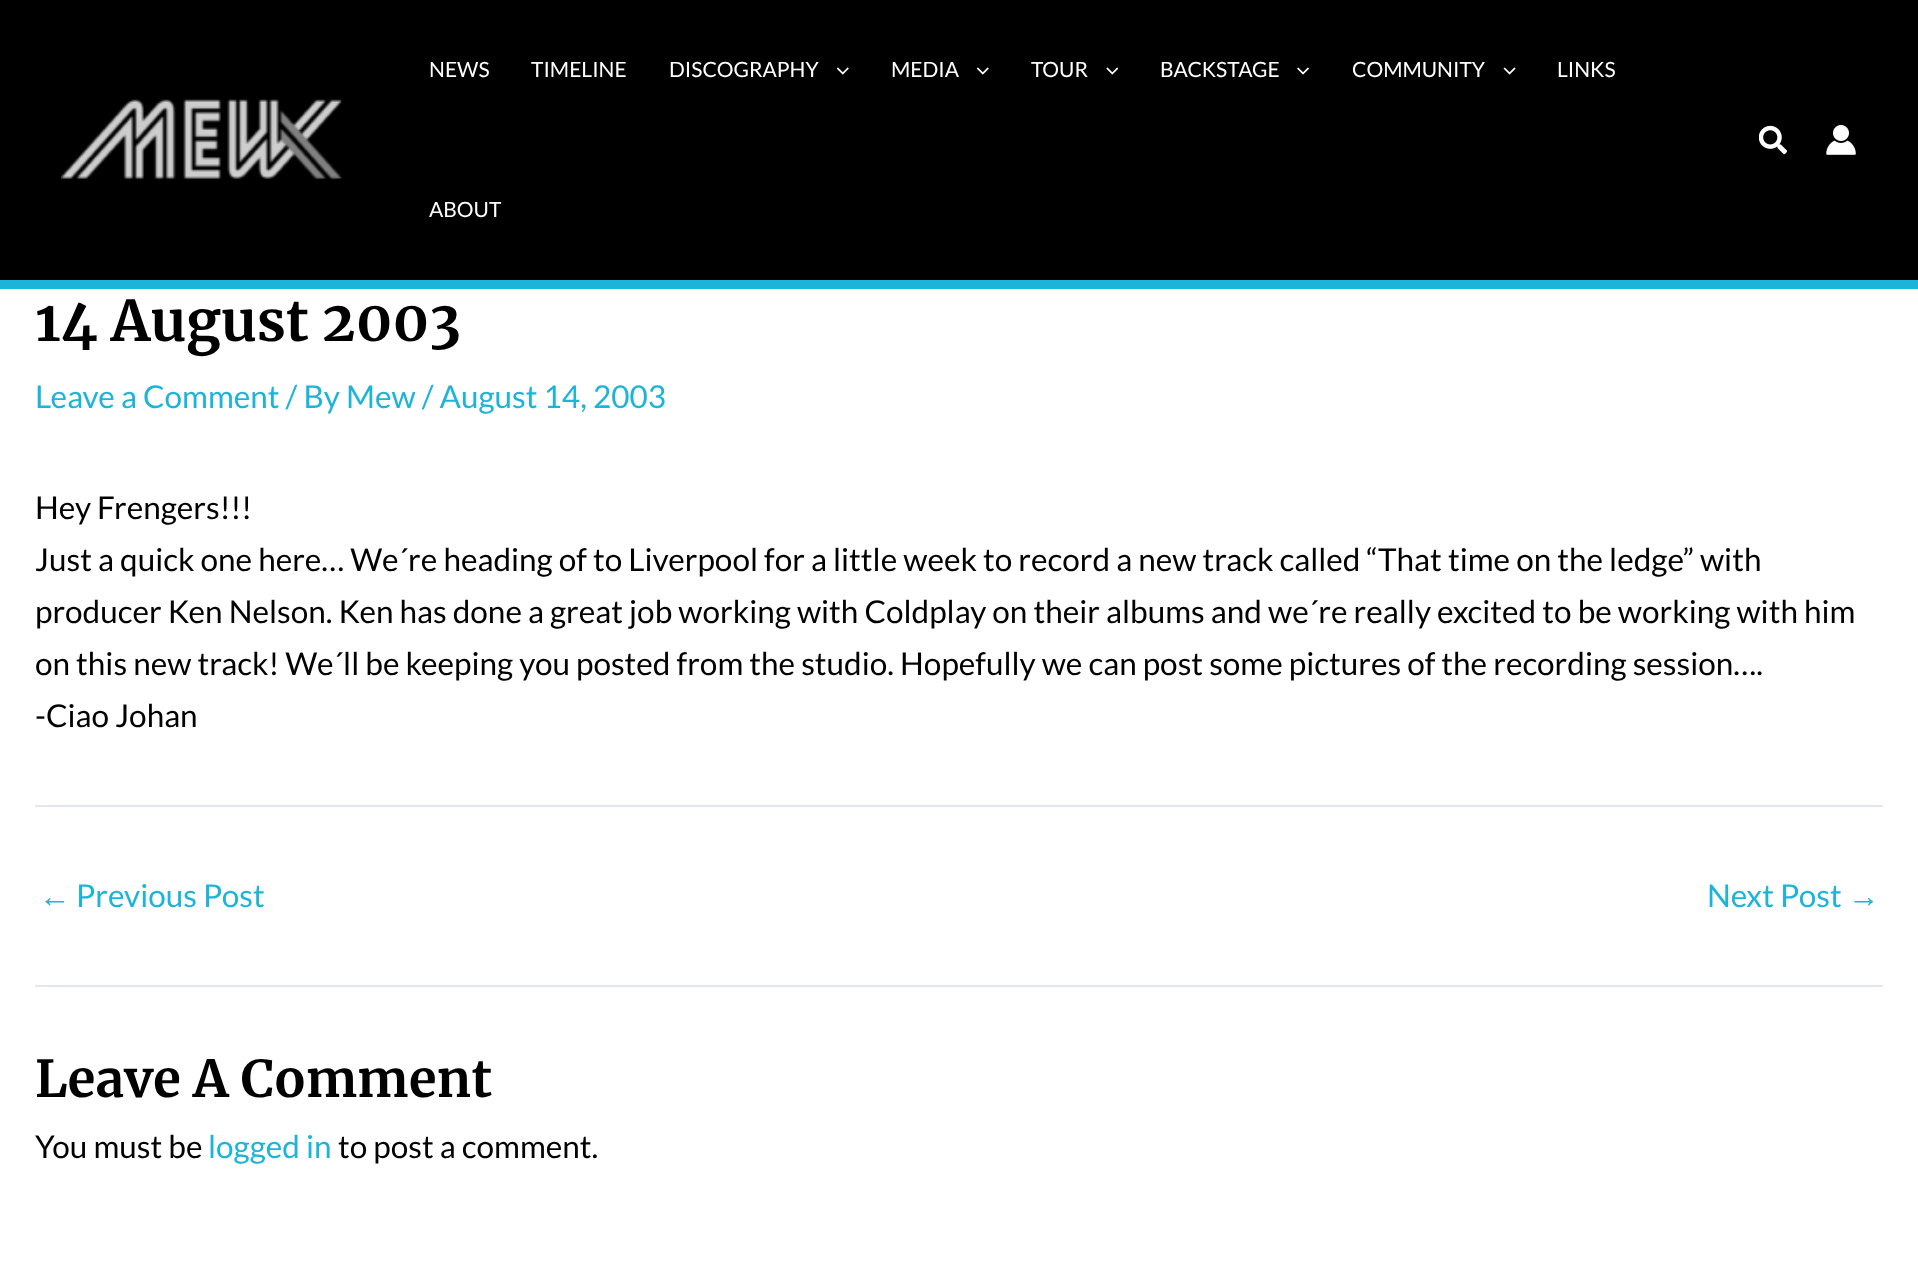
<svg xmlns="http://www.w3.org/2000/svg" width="1918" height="1271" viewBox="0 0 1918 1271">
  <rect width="100%" height="100%" fill="rgb(255,255,255)"/>
  <rect x="0" y="0" width="1918" height="280" fill="rgb(0,0,0)"/>
  <rect x="0" y="280" width="1918" height="9" fill="rgb(29,180,218)"/>
  <image x="61" y="99" width="281" height="81" href="pic1.png"/>
  <g font-family="Lato" font-size="21" fill="rgb(255,255,255)">
    <text x="429" y="77">NEWS</text>
    <text x="531" y="77">TIMELINE</text>
    <text x="669" y="77">DISCOGRAPHY</text>
  </g>
  <image x="837" y="67" width="12" height="8" href="pic2.png"/>
  <text x="891" y="77" font-family="Lato" font-size="21" fill="rgb(255,255,255)">MEDIA</text>
  <image x="977" y="67" width="12" height="8" href="pic2.png"/>
  <text x="1031" y="77" font-family="Lato" font-size="21" fill="rgb(255,255,255)">TOUR</text>
  <image x="1106" y="67" width="12" height="8" href="pic3.png"/>
  <text x="1160" y="77" font-family="Lato" font-size="21" fill="rgb(255,255,255)">BACKSTAGE</text>
  <image x="1297" y="67" width="12" height="8" href="pic4.png"/>
  <text x="1352" y="77" font-family="Lato" font-size="21" fill="rgb(255,255,255)">COMMUNITY</text>
  <image x="1503" y="67" width="13" height="8" href="pic5.png"/>
  <g font-family="Lato" font-size="21" fill="rgb(255,255,255)">
    <text x="1557" y="77">LINKS</text>
    <text x="429" y="217">ABOUT</text>
  </g>
  <image x="1759" y="125" width="28" height="30" href="pic6.png"/>
  <image x="1826" y="125" width="30" height="30" href="pic7.png"/>
  <text x="35" y="341" font-family="Merriweather" font-size="56" font-weight="bold" fill="rgb(0,0,0)">14 August 2003</text>
  <text x="35" y="408" font-family="Lato" font-size="31.5" fill="rgb(29,180,218)">Leave a Comment / By Mew / August 14, 2003</text>
  <g font-family="Lato" font-size="31.5" fill="rgb(0,0,0)">
    <text>
      <tspan x="35" y="519">Hey Frengers!!!</tspan>
      <tspan x="35" y="571">Just a quick one here… We´re heading of to Liverpool for a little week to record a new track called “That time on the ledge” with</tspan>
      <tspan x="35" y="623">producer Ken Nelson. Ken has done a great job working with Coldplay on their albums and we´re really excited to be working with him</tspan>
      <tspan x="35" y="675">on this new track! We´ll be keeping you posted from the studio. Hopefully we can post some pictures of the recording session….</tspan>
      <tspan x="35" y="727">-Ciao Johan</tspan>
    </text>
  </g>
  <rect x="35" y="805" width="1848" height="2" fill="rgb(226,232,240)"/>
  <text x="39" y="907" font-family="Liberation Sans" font-size="31.5" fill="rgb(29,180,218)">←</text>
  <g font-family="Lato" font-size="31.5" fill="rgb(29,180,218)">
    <text x="76" y="907">Previous Post</text>
    <text x="1707" y="907">Next Post</text>
  </g>
  <text x="1848" y="907" font-family="Liberation Sans" font-size="31.5" fill="rgb(29,180,218)">→</text>
  <rect x="35" y="985" width="1848" height="2" fill="rgb(226,232,240)"/>
  <text x="35" y="1097" font-family="Merriweather" font-size="50.75" font-weight="bold" fill="rgb(0,0,0)">Leave A Comment</text>
  <text x="35" y="1158" font-family="Lato" font-size="31.5" fill="rgb(0,0,0)">You must be</text>
  <text x="208" y="1158" font-family="Lato" font-size="31.5" fill="rgb(29,180,218)">logged in</text>
  <text x="338" y="1158" font-family="Lato" font-size="31.5" fill="rgb(0,0,0)">to post a comment.</text>
</svg>
